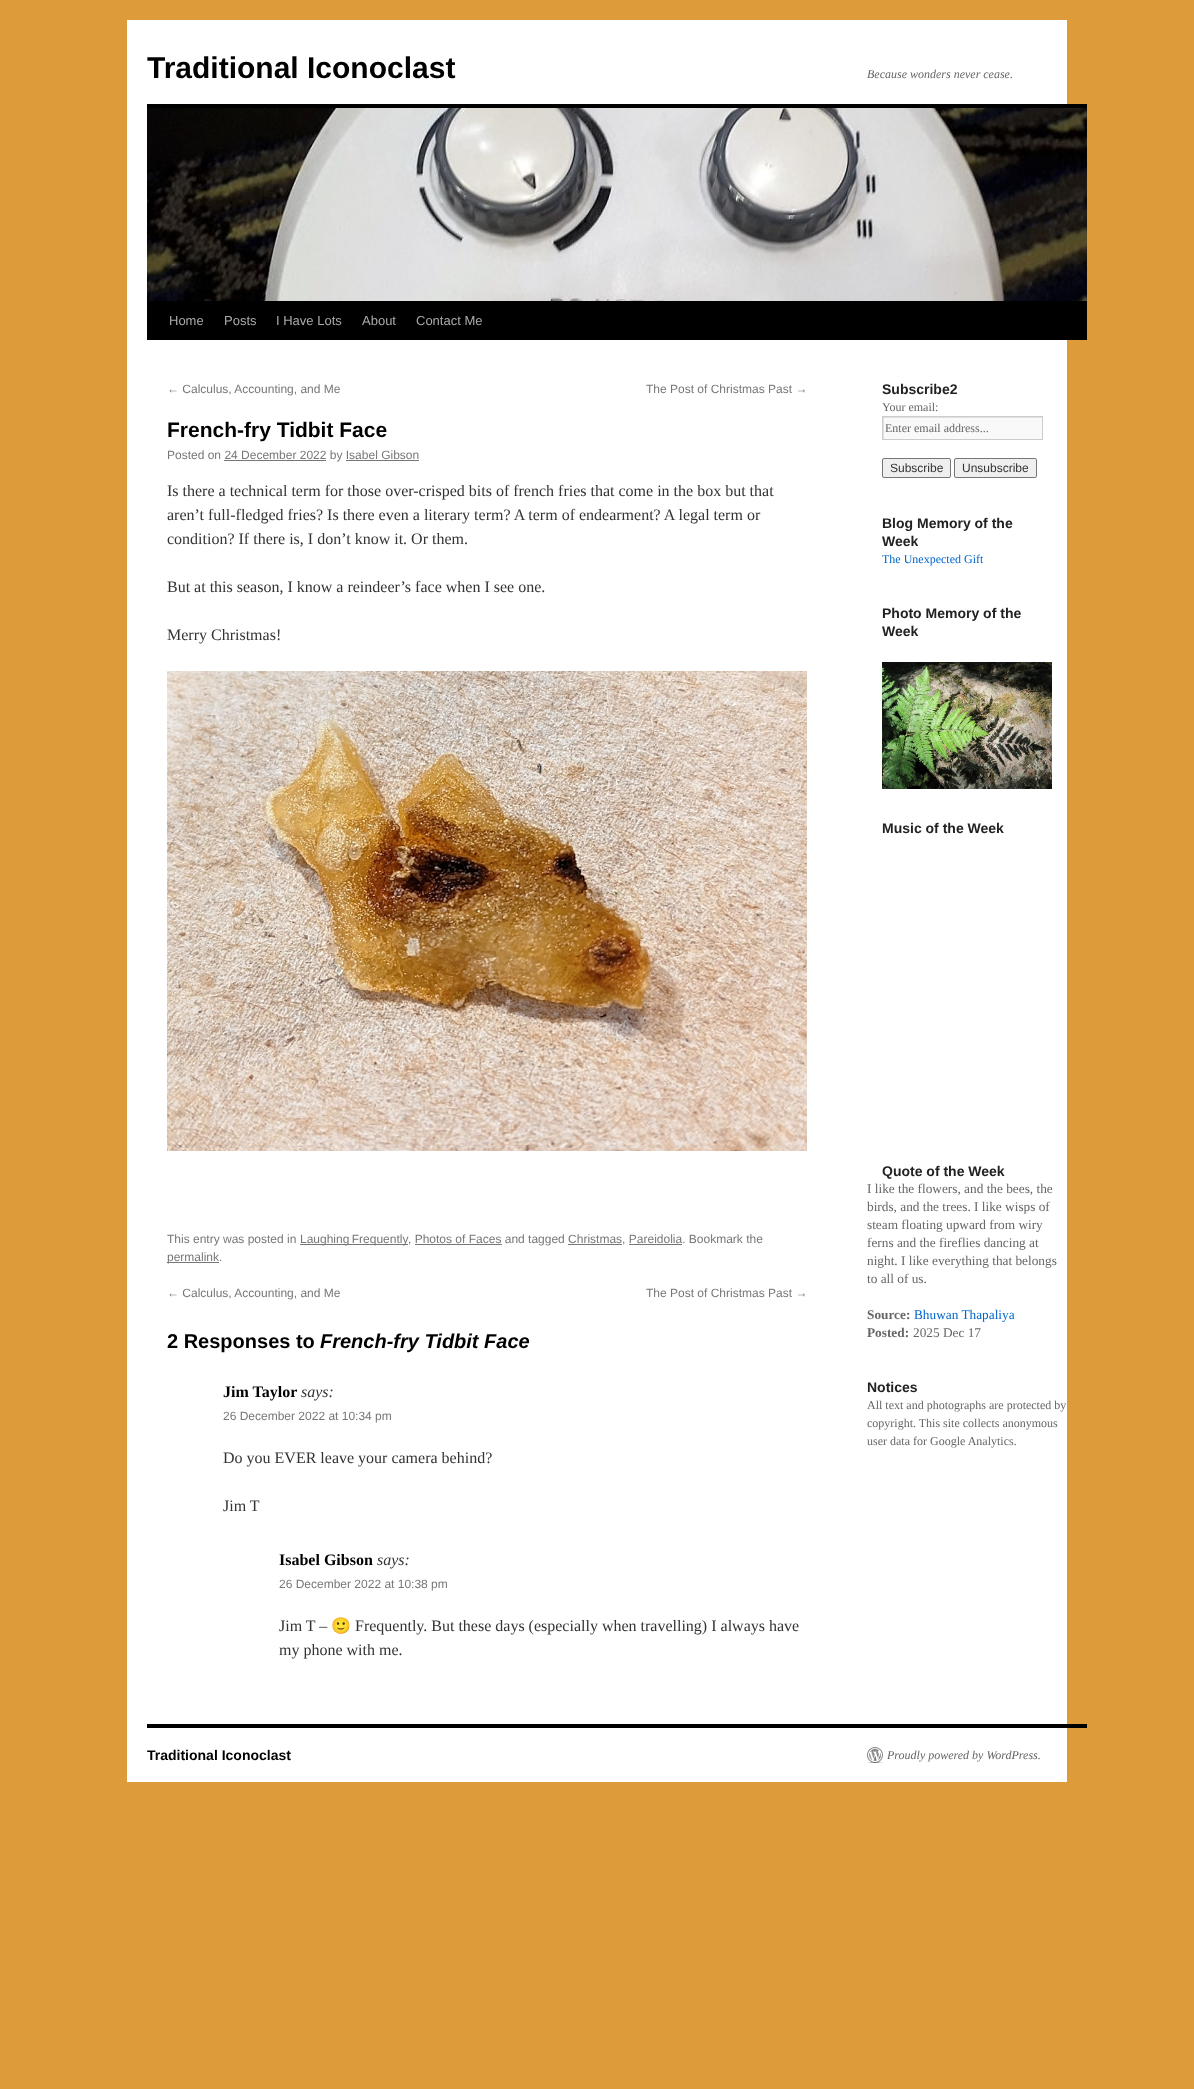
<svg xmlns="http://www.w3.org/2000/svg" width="1194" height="2089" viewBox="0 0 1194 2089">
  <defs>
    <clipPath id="clip1"><rect x="883" y="417" width="159" height="22"/></clipPath>
  </defs>
  <rect width="100%" height="100%" fill="rgb(221,156,57)"/>
  <rect x="127" y="20" width="940" height="1762" fill="rgb(255,255,255)"/>
  <text x="147" y="78" font-family="Liberation Sans" font-size="30" font-weight="bold" fill="rgb(0,0,0)">Traditional Iconoclast</text>
  <text x="867" y="78" font-family="Liberation Serif" font-size="12" font-style="italic" fill="rgb(102,102,102)">Because wonders never cease.</text>
  <rect x="147" y="104" width="940" height="4" fill="rgb(0,0,0)"/>
  <rect x="147" y="301" width="940" height="39" fill="rgb(0,0,0)"/>
  <image x="147" y="108" width="940" height="193" href="pic1.png"/>
  <g font-family="Liberation Sans" font-size="13" fill="rgb(170,170,170)">
    <text x="169" y="325">Home</text>
    <text x="224" y="325">Posts</text>
    <text x="276" y="325">I Have Lots</text>
    <text x="362" y="325">About</text>
    <text x="416" y="325">Contact Me</text>
  </g>
  <g font-family="Liberation Sans" font-size="12" fill="rgb(119,119,119)">
    <text x="167" y="393">← Calculus, Accounting, and Me</text>
    <text x="646" y="393">The Post of Christmas Past →</text>
  </g>
  <text x="167" y="437" font-family="Liberation Sans" font-size="21" font-weight="bold" fill="rgb(0,0,0)">French-fry Tidbit Face</text>
  <text x="167" y="459" font-family="Liberation Sans" font-size="12" fill="rgb(119,119,119)">Posted on 24 December 2022 by Isabel Gibson</text>
  <rect x="224" y="460" width="102" height="1" fill="rgb(119,119,119)"/>
  <rect x="346" y="460" width="73" height="1" fill="rgb(119,119,119)"/>
  <g font-family="Liberation Serif" font-size="16" fill="rgb(51,51,51)">
    <text>
      <tspan x="167" y="496">Is there a technical term for those over-crisped bits of french fries that come in the box but that</tspan>
      <tspan x="167" y="520">aren’t full-fledged fries? Is there even a literary term? A term of endearment? A legal term or</tspan>
      <tspan x="167" y="544">condition? If there is, I don’t know it. Or them.</tspan>
    </text>
    <text x="167" y="592">But at this season, I know a reindeer’s face when I see one.</text>
    <text x="167" y="640">Merry Christmas!</text>
  </g>
  <image x="167" y="671" width="640" height="480" href="pic2.png"/>
  <text x="167" y="1243" font-family="Liberation Sans" font-size="12" fill="rgb(119,119,119)">This entry was posted in</text>
  <rect x="300" y="1244" width="108" height="1" fill="rgb(119,119,119)"/>
  <g font-family="Liberation Sans" font-size="12" fill="rgb(119,119,119)">
    <text x="300" y="1243" word-spacing="-1">Laughing Frequently</text>
    <text x="408" y="1243">, Photos of Faces and tagged Christmas, Pareidolia. Bookmark the</text>
  </g>
  <rect x="415" y="1244" width="87" height="1" fill="rgb(119,119,119)"/>
  <rect x="568" y="1244" width="54" height="1" fill="rgb(119,119,119)"/>
  <rect x="629" y="1244" width="53" height="1" fill="rgb(119,119,119)"/>
  <rect x="167" y="1262" width="52" height="1" fill="rgb(119,119,119)"/>
  <g font-family="Liberation Sans" font-size="12" fill="rgb(119,119,119)">
    <text x="167" y="1261">permalink.</text>
    <text x="167" y="1297">← Calculus, Accounting, and Me</text>
    <text x="646" y="1297">The Post of Christmas Past →</text>
  </g>
  <text x="167" y="1348" font-family="Liberation Sans" font-size="20" font-weight="bold" fill="rgb(0,0,0)">2 Responses to</text>
  <text x="320" y="1348" font-family="Liberation Sans" font-size="20" font-weight="bold" font-style="italic" fill="rgb(0,0,0)">French-fry Tidbit Face</text>
  <text x="223" y="1397" font-family="Liberation Serif" font-size="16" font-weight="bold" fill="rgb(0,0,0)">Jim Taylor</text>
  <text x="301" y="1397" font-family="Liberation Serif" font-size="16" font-style="italic" fill="rgb(51,51,51)">says:</text>
  <text x="223" y="1420" font-family="Liberation Sans" font-size="12" fill="rgb(119,119,119)">26 December 2022 at 10:34 pm</text>
  <g font-family="Liberation Serif" font-size="16" fill="rgb(51,51,51)">
    <text x="223" y="1463">Do you EVER leave your camera behind?</text>
    <text x="223" y="1511">Jim T</text>
  </g>
  <text x="279" y="1565" font-family="Liberation Serif" font-size="16" font-weight="bold" fill="rgb(0,0,0)">Isabel Gibson</text>
  <text x="377" y="1565" font-family="Liberation Serif" font-size="16" font-style="italic" fill="rgb(51,51,51)">says:</text>
  <text x="279" y="1588" font-family="Liberation Sans" font-size="12" fill="rgb(119,119,119)">26 December 2022 at 10:38 pm</text>
  <text x="279" y="1631" font-family="Liberation Serif" font-size="16" fill="rgb(51,51,51)">Jim T –</text>
  <text x="331" y="1631" font-family="Noto Color Emoji" font-size="16" fill="rgb(51,51,51)">🙂</text>
  <g font-family="Liberation Serif" font-size="16" fill="rgb(51,51,51)">
    <text x="355" y="1631">Frequently. But these days (especially when travelling) I always have</text>
    <text x="279" y="1655">my phone with me.</text>
  </g>
  <text x="882" y="394" font-family="Liberation Sans" font-size="14" font-weight="bold" fill="rgb(34,34,34)">Subscribe2</text>
  <text x="882" y="411" font-family="Liberation Serif" font-size="12" fill="rgb(102,102,102)">Your email:</text>
  <rect x="884" y="418" width="158" height="21" fill="rgb(249,249,249)"/>
  <g clip-path="url(#clip1)">
    <path d="M784 318H1141V538H784ZM884 418H1043V440H884Z" fill="rgb(224,224,224)" fill-rule="evenodd"/>
  </g>
  <rect x="882.5" y="416.5" width="160" height="23" fill="none" stroke="rgb(204,204,204)"/>
  <text x="885" y="432" font-family="Liberation Serif" font-size="12" fill="rgb(102,102,102)">Enter email address...</text>
  <rect x="882.5" y="458.5" width="68" height="19" rx="1.5" fill="rgb(239,239,239)" stroke="rgb(118,118,118)"/>
  <text x="890" y="472" font-family="Liberation Sans" font-size="12" fill="rgb(51,51,51)">Subscribe</text>
  <rect x="954.5" y="458.5" width="82" height="19" rx="1.5" fill="rgb(239,239,239)" stroke="rgb(118,118,118)"/>
  <text x="962" y="472" font-family="Liberation Sans" font-size="12" fill="rgb(51,51,51)">Unsubscribe</text>
  <g font-family="Liberation Sans" font-size="14" font-weight="bold" fill="rgb(34,34,34)">
    <text>
      <tspan x="882" y="528">Blog Memory of the</tspan>
      <tspan x="882" y="546">Week</tspan>
    </text>
  </g>
  <text x="882" y="563" font-family="Liberation Serif" font-size="12" fill="rgb(0,102,204)">The Unexpected Gift</text>
  <g font-family="Liberation Sans" font-size="14" font-weight="bold" fill="rgb(34,34,34)">
    <text>
      <tspan x="882" y="618">Photo Memory of the</tspan>
      <tspan x="882" y="636">Week</tspan>
    </text>
  </g>
  <image x="882" y="662" width="170" height="127" href="pic3.png"/>
  <g font-family="Liberation Sans" font-size="14" font-weight="bold" fill="rgb(34,34,34)">
    <text x="882" y="833">Music of the Week</text>
    <text x="882" y="1176">Quote of the Week</text>
  </g>
  <g font-family="Liberation Serif" font-size="13.3" fill="rgb(102,102,102)">
    <text>
      <tspan x="867" y="1193">I like the flowers, and the bees, the</tspan>
      <tspan x="867" y="1211">birds, and the trees. I like wisps of</tspan>
      <tspan x="867" y="1229">steam floating upward from wiry</tspan>
      <tspan x="867" y="1247">ferns and the fireflies dancing at</tspan>
      <tspan x="867" y="1265">night. I like everything that belongs</tspan>
      <tspan x="867" y="1283">to all of us.</tspan>
    </text>
  </g>
  <text x="867" y="1319" font-family="Liberation Serif" font-size="13.3" font-weight="bold" fill="rgb(102,102,102)">Source:</text>
  <text x="914" y="1319" font-family="Liberation Serif" font-size="13.3" fill="rgb(0,102,204)">Bhuwan Thapaliya</text>
  <text x="867" y="1337" font-family="Liberation Serif" font-size="13.3" font-weight="bold" fill="rgb(102,102,102)">Posted:</text>
  <text x="913" y="1337" font-family="Liberation Serif" font-size="13.3" fill="rgb(102,102,102)">2025 Dec 17</text>
  <text x="867" y="1392" font-family="Liberation Sans" font-size="14" font-weight="bold" fill="rgb(34,34,34)">Notices</text>
  <g font-family="Liberation Serif" font-size="12" fill="rgb(102,102,102)">
    <text>
      <tspan x="867" y="1409">All text and photographs are protected by</tspan>
      <tspan x="867" y="1427">copyright. This site collects anonymous</tspan>
      <tspan x="867" y="1445">user data for Google Analytics.</tspan>
    </text>
  </g>
  <rect x="147" y="1724" width="940" height="4" fill="rgb(0,0,0)"/>
  <text x="147" y="1760" font-family="Liberation Sans" font-size="14" font-weight="bold" fill="rgb(0,0,0)">Traditional Iconoclast</text>
  <image x="867" y="1747" width="16" height="16" href="pic4.png"/>
  <text x="887" y="1759" font-family="Liberation Serif" font-size="12" font-style="italic" fill="rgb(102,102,102)">Proudly powered by WordPress.</text>
</svg>
